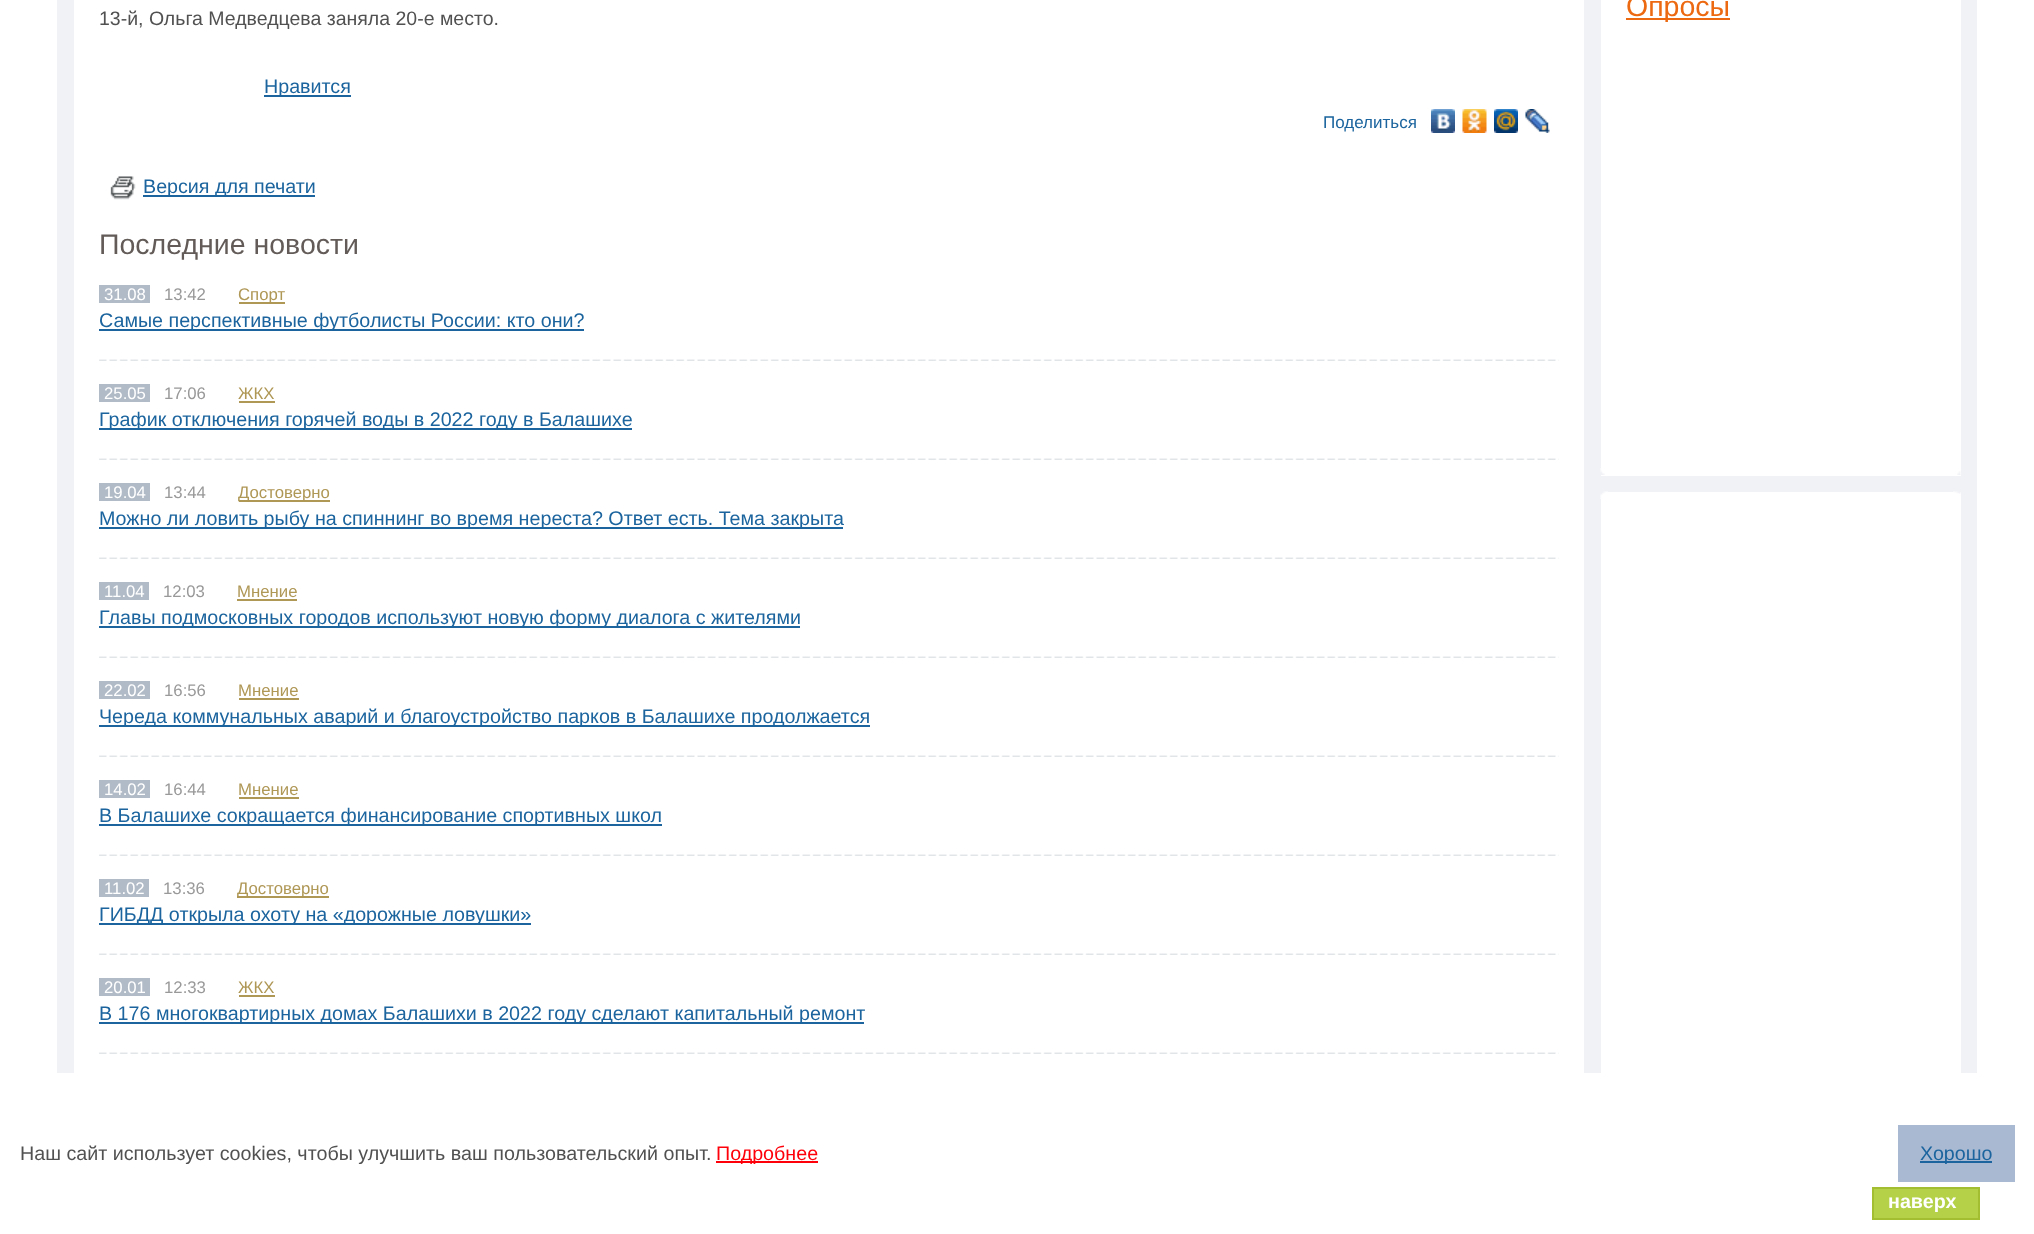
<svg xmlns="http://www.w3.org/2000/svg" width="2034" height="1234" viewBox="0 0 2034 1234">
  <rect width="100%" height="100%" fill="rgb(255,255,255)"/>
  <rect x="57" y="0" width="1920" height="1073" fill="rgb(241,242,246)"/>
  <rect x="74" y="0" width="1887" height="1073" fill="rgb(255,255,255)"/>
  <text x="99" y="25" font-family="Liberation Sans" font-size="19.5" fill="rgb(81,81,81)">13-й, Ольга Медведцева заняла 20-е место.</text>
  <rect x="264" y="95" width="87" height="2" fill="rgb(27,100,158)"/>
  <text x="264" y="93" font-family="Liberation Sans" font-size="19.7" fill="rgb(27,100,158)">Нравится</text>
  <text x="1323" y="128" font-family="Liberation Sans" font-size="17" fill="rgb(27,100,158)">Поделиться</text>
  <image x="1431" y="109" width="24" height="24" href="pic1.png"/>
  <image x="1462" y="109" width="25" height="24" href="pic2.png"/>
  <image x="1494" y="109" width="24" height="24" href="pic3.png"/>
  <image x="1525" y="109" width="25" height="24" href="pic4.png"/>
  <image x="110" y="176" width="26" height="24" href="pic5.png"/>
  <rect x="143" y="195" width="172" height="2" fill="rgb(27,100,158)"/>
  <text x="143" y="193" font-family="Liberation Sans" font-size="19.7" fill="rgb(27,100,158)">Версия для печати</text>
  <text x="99" y="254" font-family="Liberation Sans" font-size="28.5" fill="rgb(98,91,88)">Последние новости</text>
  <image x="99" y="359" width="1460" height="2" href="pic6.png"/>
  <rect x="99" y="285" width="51" height="18" fill="rgb(177,187,199)"/>
  <text x="104" y="300" font-family="Liberation Sans" font-size="16.75" fill="rgb(255,255,255)">31.08</text>
  <text x="164" y="300" font-family="Liberation Sans" font-size="16.75" fill="rgb(153,153,153)">13:42</text>
  <rect x="239" y="302" width="46" height="2" fill="rgb(175,151,86)"/>
  <text x="238" y="300" font-family="Liberation Sans" font-size="16.75" fill="rgb(175,151,86)">Спорт</text>
  <rect x="99" y="329" width="485" height="2" fill="rgb(27,100,158)"/>
  <text x="99" y="327" font-family="Liberation Sans" font-size="19.7" fill="rgb(27,100,158)">Самые перспективные футболисты России: кто они?</text>
  <image x="99" y="458" width="1460" height="2" href="pic6.png"/>
  <rect x="99" y="384" width="51" height="18" fill="rgb(177,187,199)"/>
  <text x="104" y="399" font-family="Liberation Sans" font-size="16.75" fill="rgb(255,255,255)">25.05</text>
  <text x="164" y="399" font-family="Liberation Sans" font-size="16.75" fill="rgb(153,153,153)">17:06</text>
  <text x="238" y="399" font-family="Liberation Sans" font-size="16.75" fill="rgb(175,151,86)">ЖКХ</text>
  <rect x="239" y="401" width="36" height="2" fill="rgb(175,151,86)"/>
  <rect x="99" y="428" width="533" height="2" fill="rgb(27,100,158)"/>
  <text x="99" y="426" font-family="Liberation Sans" font-size="19.7" fill="rgb(27,100,158)">График отключения горячей воды в 2022 году в Балашихе</text>
  <image x="99" y="557" width="1460" height="2" href="pic6.png"/>
  <rect x="99" y="483" width="51" height="18" fill="rgb(177,187,199)"/>
  <text x="104" y="498" font-family="Liberation Sans" font-size="16.75" fill="rgb(255,255,255)">19.04</text>
  <text x="164" y="498" font-family="Liberation Sans" font-size="16.75" fill="rgb(153,153,153)">13:44</text>
  <rect x="239" y="500" width="91" height="2" fill="rgb(175,151,86)"/>
  <text x="238" y="498" font-family="Liberation Sans" font-size="16.75" fill="rgb(175,151,86)">Достоверно</text>
  <rect x="99" y="527" width="744" height="2" fill="rgb(27,100,158)"/>
  <text x="99" y="525" font-family="Liberation Sans" font-size="19.7" fill="rgb(27,100,158)">Можно ли ловить рыбу на спиннинг во время нереста? Ответ есть. Тема закрыта</text>
  <image x="99" y="656" width="1460" height="2" href="pic6.png"/>
  <rect x="99" y="582" width="50" height="18" fill="rgb(177,187,199)"/>
  <text x="104" y="597" font-family="Liberation Sans" font-size="16.75" fill="rgb(255,255,255)">11.04</text>
  <text x="163" y="597" font-family="Liberation Sans" font-size="16.75" fill="rgb(153,153,153)">12:03</text>
  <text x="237" y="597" font-family="Liberation Sans" font-size="16.75" fill="rgb(175,151,86)">Мнение</text>
  <rect x="237" y="599" width="60" height="2" fill="rgb(175,151,86)"/>
  <rect x="99" y="626" width="701" height="2" fill="rgb(27,100,158)"/>
  <text x="99" y="624" font-family="Liberation Sans" font-size="19.7" fill="rgb(27,100,158)">Главы подмосковных городов используют новую форму диалога с жителями</text>
  <image x="99" y="755" width="1460" height="2" href="pic6.png"/>
  <rect x="99" y="681" width="51" height="18" fill="rgb(177,187,199)"/>
  <text x="104" y="696" font-family="Liberation Sans" font-size="16.75" fill="rgb(255,255,255)">22.02</text>
  <text x="164" y="696" font-family="Liberation Sans" font-size="16.75" fill="rgb(153,153,153)">16:56</text>
  <text x="238" y="696" font-family="Liberation Sans" font-size="16.75" fill="rgb(175,151,86)">Мнение</text>
  <rect x="239" y="698" width="60" height="2" fill="rgb(175,151,86)"/>
  <rect x="99" y="725" width="771" height="2" fill="rgb(27,100,158)"/>
  <text x="99" y="723" font-family="Liberation Sans" font-size="19.7" fill="rgb(27,100,158)">Череда коммунальных аварий и благоустройство парков в Балашихе продолжается</text>
  <image x="99" y="854" width="1460" height="2" href="pic6.png"/>
  <rect x="99" y="780" width="51" height="18" fill="rgb(177,187,199)"/>
  <text x="104" y="795" font-family="Liberation Sans" font-size="16.75" fill="rgb(255,255,255)">14.02</text>
  <text x="164" y="795" font-family="Liberation Sans" font-size="16.75" fill="rgb(153,153,153)">16:44</text>
  <text x="238" y="795" font-family="Liberation Sans" font-size="16.75" fill="rgb(175,151,86)">Мнение</text>
  <rect x="239" y="797" width="60" height="2" fill="rgb(175,151,86)"/>
  <rect x="99" y="824" width="563" height="2" fill="rgb(27,100,158)"/>
  <text x="99" y="822" font-family="Liberation Sans" font-size="19.7" fill="rgb(27,100,158)">В Балашихе сокращается финансирование спортивных школ</text>
  <image x="99" y="953" width="1460" height="2" href="pic6.png"/>
  <rect x="99" y="879" width="50" height="18" fill="rgb(177,187,199)"/>
  <text x="104" y="894" font-family="Liberation Sans" font-size="16.75" fill="rgb(255,255,255)">11.02</text>
  <text x="163" y="894" font-family="Liberation Sans" font-size="16.75" fill="rgb(153,153,153)">13:36</text>
  <rect x="237" y="896" width="92" height="2" fill="rgb(175,151,86)"/>
  <text x="237" y="894" font-family="Liberation Sans" font-size="16.75" fill="rgb(175,151,86)">Достоверно</text>
  <rect x="99" y="923" width="432" height="2" fill="rgb(27,100,158)"/>
  <text x="99" y="921" font-family="Liberation Sans" font-size="19.7" fill="rgb(27,100,158)">ГИБДД открыла охоту на «дорожные ловушки»</text>
  <image x="99" y="1052" width="1460" height="2" href="pic6.png"/>
  <rect x="99" y="978" width="51" height="18" fill="rgb(177,187,199)"/>
  <text x="104" y="993" font-family="Liberation Sans" font-size="16.75" fill="rgb(255,255,255)">20.01</text>
  <text x="164" y="993" font-family="Liberation Sans" font-size="16.75" fill="rgb(153,153,153)">12:33</text>
  <text x="238" y="993" font-family="Liberation Sans" font-size="16.75" fill="rgb(175,151,86)">ЖКХ</text>
  <rect x="239" y="995" width="36" height="2" fill="rgb(175,151,86)"/>
  <rect x="99" y="1022" width="765" height="2" fill="rgb(27,100,158)"/>
  <text x="99" y="1020" font-family="Liberation Sans" font-size="19.7" fill="rgb(27,100,158)">В 176 многоквартирных домах Балашихи в 2022 году сделают капитальный ремонт</text>
  <rect x="1584" y="0" width="17" height="1073" fill="rgb(241,242,246)"/>
  <rect x="1626" y="18" width="104" height="2" fill="rgb(237,105,17)"/>
  <text x="1626" y="16" font-family="Liberation Sans" font-size="28.5" fill="rgb(237,105,17)">Опросы</text>
  <image x="1600" y="468" width="5" height="7" href="pic7.png"/>
  <image x="1957" y="471" width="4" height="4" href="pic8.png"/>
  <rect x="1601" y="476" width="360" height="16" fill="rgb(241,242,246)"/>
  <image x="1600" y="491" width="8" height="8" href="pic9.png"/>
  <image x="1953" y="491" width="8" height="3" href="pic10.png"/>
  <rect x="1873" y="1188" width="106" height="31" fill="rgb(180,209,72)" stroke="rgb(163,190,48)" stroke-width="2"/>
  <text x="1888" y="1208" font-family="Liberation Sans" font-size="19.7" font-weight="bold" fill="rgb(255,255,255)">наверх</text>
  <text x="20" y="1160" font-family="Liberation Sans" font-size="19.7" fill="rgb(81,81,81)">Наш сайт использует cookies, чтобы улучшить ваш пользовательский опыт.</text>
  <rect x="716" y="1161" width="102" height="2" fill="rgb(254,0,10)"/>
  <text x="716" y="1160" font-family="Liberation Sans" font-size="19.7" fill="rgb(254,0,10)">Подробнее</text>
  <rect x="1898" y="1125" width="117" height="57" fill="rgb(169,185,210)"/>
  <rect x="1920" y="1161" width="72" height="2" fill="rgb(27,100,158)"/>
  <text x="1920" y="1160" font-family="Liberation Sans" font-size="19.7" fill="rgb(27,100,158)">Хорошо</text>
</svg>
